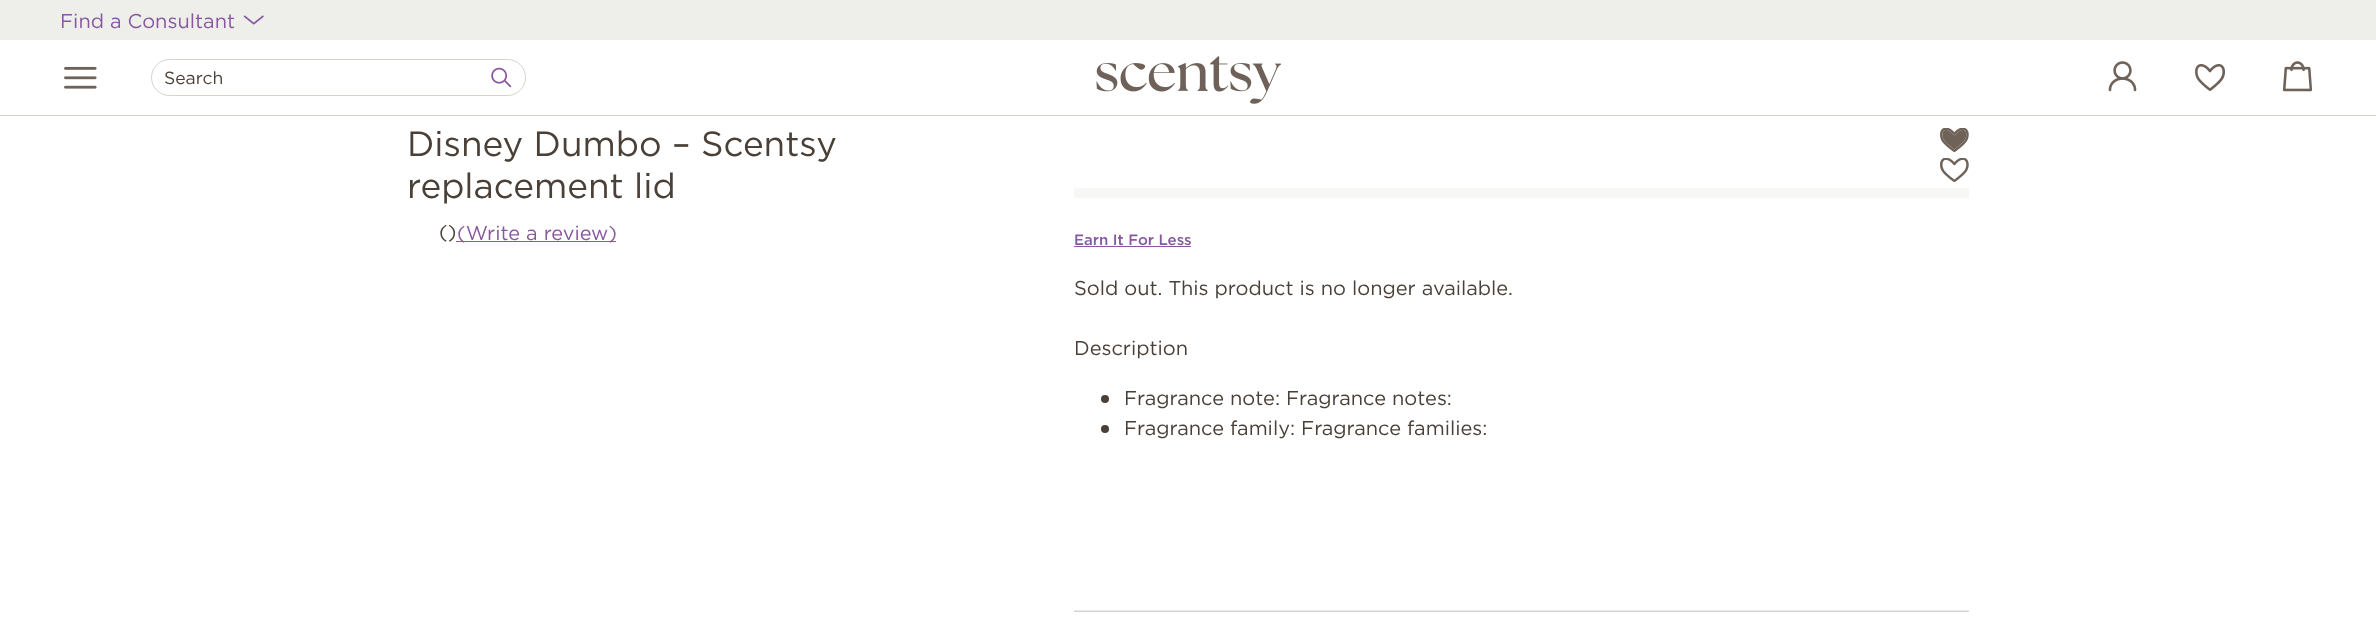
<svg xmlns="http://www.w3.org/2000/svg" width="2376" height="632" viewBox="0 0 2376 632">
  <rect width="100%" height="100%" fill="rgb(255,255,255)"/>
  <rect x="0" y="0" width="2376" height="40" fill="rgb(238,238,235)"/>
  <text x="60" y="28" font-family="Gotham" font-size="20" fill="rgb(136,87,157)">Find a Consultant</text>
  <image x="243" y="15" width="21" height="10" href="pic1.png"/>
  <rect x="0" y="115" width="2376" height="1" fill="rgb(215,210,203)"/>
  <image x="64" y="66" width="33" height="23" href="pic2.png"/>
  <rect x="151.5" y="59.5" width="374" height="36" rx="18" fill="none" stroke="rgb(215,210,203)"/>
  <text x="164" y="84" font-family="Gotham" font-size="17.5" fill="rgb(74,64,55)">Search</text>
  <image x="491" y="67" width="21" height="21" href="pic3.png"/>
  <image x="1096" y="56" width="185" height="48" href="pic4.png"/>
  <image x="2108" y="61" width="29" height="31" href="pic5.png"/>
  <image x="2195" y="64" width="31" height="27" href="pic6.png"/>
  <image x="2282" y="61" width="31" height="31" href="pic7.png"/>
  <g font-family="Gotham" font-size="35" fill="rgb(74,64,55)">
    <text>
      <tspan x="407" y="156">Disney Dumbo – Scentsy</tspan>
      <tspan x="407" y="198">replacement lid</tspan>
    </text>
  </g>
  <text x="439" y="239" font-family="Gotham" font-size="20" fill="rgb(74,64,55)">()</text>
  <rect x="456" y="241" width="160" height="1" fill="rgb(136,87,157)"/>
  <text x="457" y="240" font-family="Gotham" font-size="20" fill="rgb(136,87,157)">(Write a review)</text>
  <image x="1940" y="128" width="29" height="25" href="pic8.png"/>
  <image x="1940" y="158" width="29" height="25" href="pic9.png"/>
  <rect x="1074" y="188" width="895" height="10" fill="rgb(247,247,245)"/>
  <text x="1074" y="245" font-family="Gotham" font-size="15" font-weight="500" fill="rgb(136,87,157)">Earn It For Less</text>
  <rect x="1074" y="246" width="117" height="1" fill="rgb(136,87,157)"/>
  <g font-family="Gotham" font-size="20" fill="rgb(74,64,55)">
    <text x="1074" y="295">Sold out. This product is no longer available.</text>
    <text x="1074" y="355">Description</text>
  </g>
  <circle cx="1105" cy="399" r="4" fill="rgb(74,64,55)"/>
  <text x="1124" y="405" font-family="Gotham" font-size="20" fill="rgb(74,64,55)">Fragrance note: Fragrance notes:</text>
  <circle cx="1105" cy="429" r="4" fill="rgb(74,64,55)"/>
  <text x="1124" y="435" font-family="Gotham" font-size="20" fill="rgb(74,64,55)">Fragrance family: Fragrance families:</text>
  <rect x="1074" y="610" width="895" height="1" fill="rgb(236,228,239)"/>
  <rect x="1074" y="611" width="895" height="1" fill="rgb(215,210,203)"/>
</svg>
